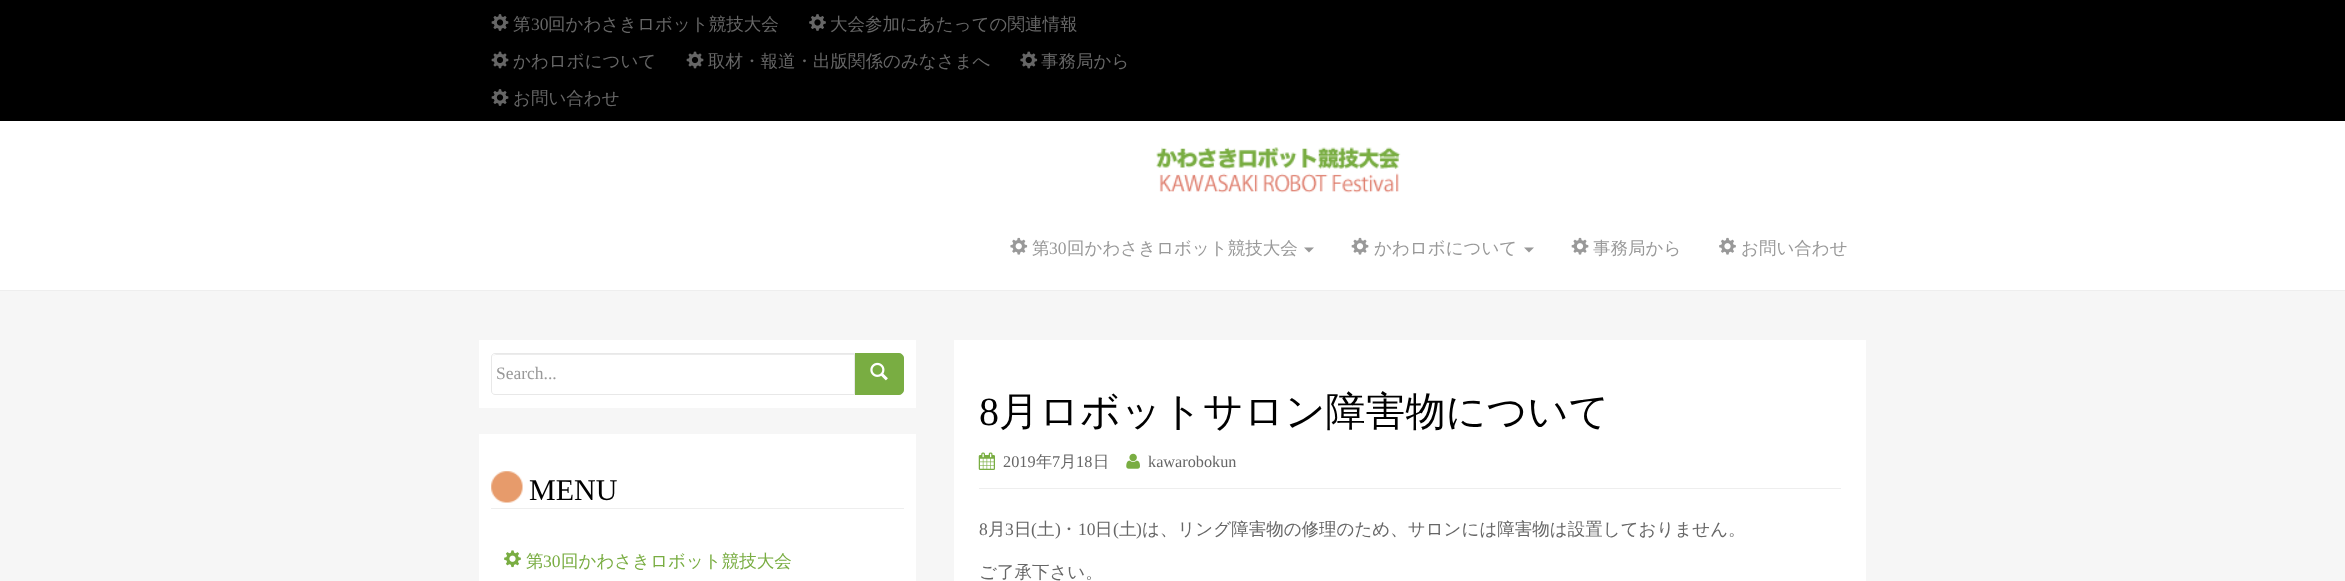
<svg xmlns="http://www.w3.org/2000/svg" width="2345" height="581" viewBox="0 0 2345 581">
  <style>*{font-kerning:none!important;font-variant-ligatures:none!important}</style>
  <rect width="100%" height="100%" fill="rgb(246,246,246)"/>
  <rect x="0" y="0" width="2345" height="121" fill="rgb(0,0,0)"/>
  <image x="491" y="14" width="18" height="17" href="pic1.png"/>
  <text x="513" y="30" font-family="WenQuanYi Zen Hei" font-size="17.5" font-weight="500" fill="rgb(102,102,102)">第</text>
  <text x="531" y="30" font-family="Liberation Serif" font-size="17.5" fill="rgb(102,102,102)">30</text>
  <text x="548" y="30" font-family="WenQuanYi Zen Hei" font-size="17.5" font-weight="500" fill="rgb(102,102,102)">回かわさきロボット競技大会</text>
  <image x="809" y="14" width="17" height="17" href="pic2.png"/>
  <text x="830" y="30" font-family="WenQuanYi Zen Hei" font-size="17.5" font-weight="500" fill="rgb(102,102,102)">大会参加にあたっての関連情報</text>
  <image x="491" y="51" width="18" height="18" href="pic3.png"/>
  <text x="513" y="67" font-family="WenQuanYi Zen Hei" font-size="17.5" font-weight="500" fill="rgb(102,102,102)">かわロボについて</text>
  <image x="686" y="51" width="18" height="18" href="pic3.png"/>
  <text x="708" y="67" font-family="WenQuanYi Zen Hei" font-size="17.5" font-weight="500" fill="rgb(102,102,102)">取材・報道・出版関係のみなさまへ</text>
  <image x="1020" y="51" width="18" height="18" href="pic4.png"/>
  <text x="1041" y="67" font-family="WenQuanYi Zen Hei" font-size="17.5" font-weight="500" fill="rgb(102,102,102)">事務局から</text>
  <image x="491" y="89" width="18" height="17" href="pic1.png"/>
  <text x="513" y="104" font-family="WenQuanYi Zen Hei" font-size="17.5" font-weight="500" fill="rgb(102,102,102)">お問い合わせ</text>
  <rect x="0" y="121" width="2345" height="169" fill="rgb(255,255,255)"/>
  <rect x="0" y="290" width="2345" height="1" fill="rgb(238,238,238)"/>
  <image x="1156" y="147" width="245" height="46" href="pic5.png"/>
  <image x="1010" y="237" width="18" height="18" href="pic6.png"/>
  <text x="1032" y="254" font-family="WenQuanYi Zen Hei" font-size="17.5" font-weight="500" fill="rgb(153,153,153)">第</text>
  <text x="1049" y="254" font-family="Liberation Serif" font-size="17.5" fill="rgb(153,153,153)">30</text>
  <text x="1067" y="254" font-family="WenQuanYi Zen Hei" font-size="17.5" font-weight="500" fill="rgb(153,153,153)">回かわさきロボット競技大会</text>
  <path d="M1304 247.5H1314L1309 252.5Z" fill="rgb(153,153,153)"/>
  <image x="1351" y="237" width="18" height="18" href="pic7.png"/>
  <text x="1374" y="254" font-family="WenQuanYi Zen Hei" font-size="17.5" font-weight="500" fill="rgb(153,153,153)">かわロボについて</text>
  <path d="M1524 247.5H1534L1529 252.5Z" fill="rgb(153,153,153)"/>
  <image x="1571" y="237" width="18" height="18" href="pic7.png"/>
  <text x="1593" y="254" font-family="WenQuanYi Zen Hei" font-size="17.5" font-weight="500" fill="rgb(153,153,153)">事務局から</text>
  <image x="1719" y="237" width="17" height="18" href="pic8.png"/>
  <text x="1741" y="254" font-family="WenQuanYi Zen Hei" font-size="17.5" font-weight="500" fill="rgb(153,153,153)">お問い合わせ</text>
  <rect x="479" y="340" width="437" height="68" fill="rgb(255,255,255)"/>
  <path d="M854.5 353.5H899C901.5 353.5 903.5 355.5 903.5 358V390C903.5 392.5 901.5 394.5 899 394.5H854.5Z" fill="rgb(121,173,66)" stroke="rgb(121,173,66)"/>
  <path d="M495 353H855V395H495C493 395 491 393 491 391V357C491 355 493 353 495 353Z" fill="rgb(255,255,255)"/>
  <path d="M495 355H854V354H496L494 355L493 356Z" fill="rgb(236,236,236)"/>
  <path d="M495 353.5H854.5V394.5H495C493 394.5 491.5 393 491.5 391V357C491.5 355 493 353.5 495 353.5Z" fill="none" stroke="rgb(232,232,232)"/>
  <text x="496" y="379" font-family="Liberation Serif" font-size="17.5" fill="rgb(153,153,153)">Search...</text>
  <image x="870" y="362" width="18" height="19" href="pic9.png"/>
  <rect x="479" y="434" width="437" height="147" fill="rgb(255,255,255)"/>
  <image x="491" y="471" width="32" height="32" href="pic10.png"/>
  <rect x="491" y="508" width="413" height="1" fill="rgb(238,238,238)"/>
  <text x="529" y="500" font-family="Liberation Serif" font-size="30" fill="rgb(0,0,0)">MENU</text>
  <image x="504" y="550" width="17" height="18" href="pic11.png"/>
  <text x="526" y="567" font-family="WenQuanYi Zen Hei" font-size="17.5" font-weight="500" fill="rgb(121,173,66)">第</text>
  <text x="543" y="567" font-family="Liberation Serif" font-size="17.5" fill="rgb(121,173,66)">30</text>
  <text x="561" y="567" font-family="WenQuanYi Zen Hei" font-size="17.5" font-weight="500" fill="rgb(121,173,66)">回かわさきロボット競技大会</text>
  <rect x="954" y="340" width="912" height="241" fill="rgb(255,255,255)"/>
  <rect x="979" y="488" width="862" height="1" fill="rgb(238,238,238)"/>
  <text x="979" y="425" font-family="Liberation Serif" font-size="40" fill="rgb(0,0,0)">8</text>
  <text x="999" y="425" font-family="WenQuanYi Zen Hei" font-size="40" font-weight="500" fill="rgb(0,0,0)">月ロボットサロン障害物について</text>
  <image x="978" y="452" width="17" height="18" href="pic12.png"/>
  <text x="1003" y="467" font-family="Liberation Serif" font-size="16.25" fill="rgb(102,102,102)">2019</text>
  <text x="1036" y="467" font-family="WenQuanYi Zen Hei" font-size="16.25" font-weight="500" fill="rgb(102,102,102)">年</text>
  <text x="1052" y="467" font-family="Liberation Serif" font-size="16.25" fill="rgb(102,102,102)">7</text>
  <text x="1060" y="467" font-family="WenQuanYi Zen Hei" font-size="16.25" font-weight="500" fill="rgb(102,102,102)">月</text>
  <text x="1076" y="467" font-family="Liberation Serif" font-size="16.25" fill="rgb(102,102,102)">18</text>
  <text x="1093" y="467" font-family="WenQuanYi Zen Hei" font-size="16.25" font-weight="500" fill="rgb(102,102,102)">日</text>
  <image x="1126" y="453" width="14" height="16" href="pic13.png"/>
  <text x="1148" y="467" font-family="Liberation Serif" font-size="16.25" fill="rgb(102,102,102)">kawarobokun</text>
  <text x="979" y="535" font-family="Liberation Serif" font-size="17.5" fill="rgb(102,102,102)">8</text>
  <text x="988" y="535" font-family="WenQuanYi Zen Hei" font-size="17.5" font-weight="500" fill="rgb(102,102,102)">月</text>
  <text x="1005" y="535" font-family="Liberation Serif" font-size="17.5" fill="rgb(102,102,102)">3</text>
  <text x="1014" y="535" font-family="WenQuanYi Zen Hei" font-size="17.5" font-weight="500" fill="rgb(102,102,102)">日</text>
  <text x="1031" y="535" font-family="Liberation Serif" font-size="17.5" fill="rgb(102,102,102)">(</text>
  <text x="1037" y="535" font-family="WenQuanYi Zen Hei" font-size="17.5" font-weight="500" fill="rgb(102,102,102)">土</text>
  <text x="1055" y="535" font-family="Liberation Serif" font-size="17.5" fill="rgb(102,102,102)">)</text>
  <text x="1060" y="535" font-family="WenQuanYi Zen Hei" font-size="17.5" font-weight="500" fill="rgb(102,102,102)">・</text>
  <text x="1078" y="535" font-family="Liberation Serif" font-size="17.5" fill="rgb(102,102,102)">10</text>
  <text x="1095" y="535" font-family="WenQuanYi Zen Hei" font-size="17.5" font-weight="500" fill="rgb(102,102,102)">日</text>
  <text x="1113" y="535" font-family="Liberation Serif" font-size="17.5" fill="rgb(102,102,102)">(</text>
  <text x="1119" y="535" font-family="WenQuanYi Zen Hei" font-size="17.5" font-weight="500" fill="rgb(102,102,102)">土</text>
  <text x="1136" y="535" font-family="Liberation Serif" font-size="17.5" fill="rgb(102,102,102)">)</text>
  <g font-family="WenQuanYi Zen Hei" font-size="17.5" font-weight="500" fill="rgb(102,102,102)">
    <text x="1142" y="535">は、リング障害物の修理のため、サロンには障害物は設置しておりません。</text>
    <text x="979" y="578">ご了承下さい。</text>
  </g>
</svg>
